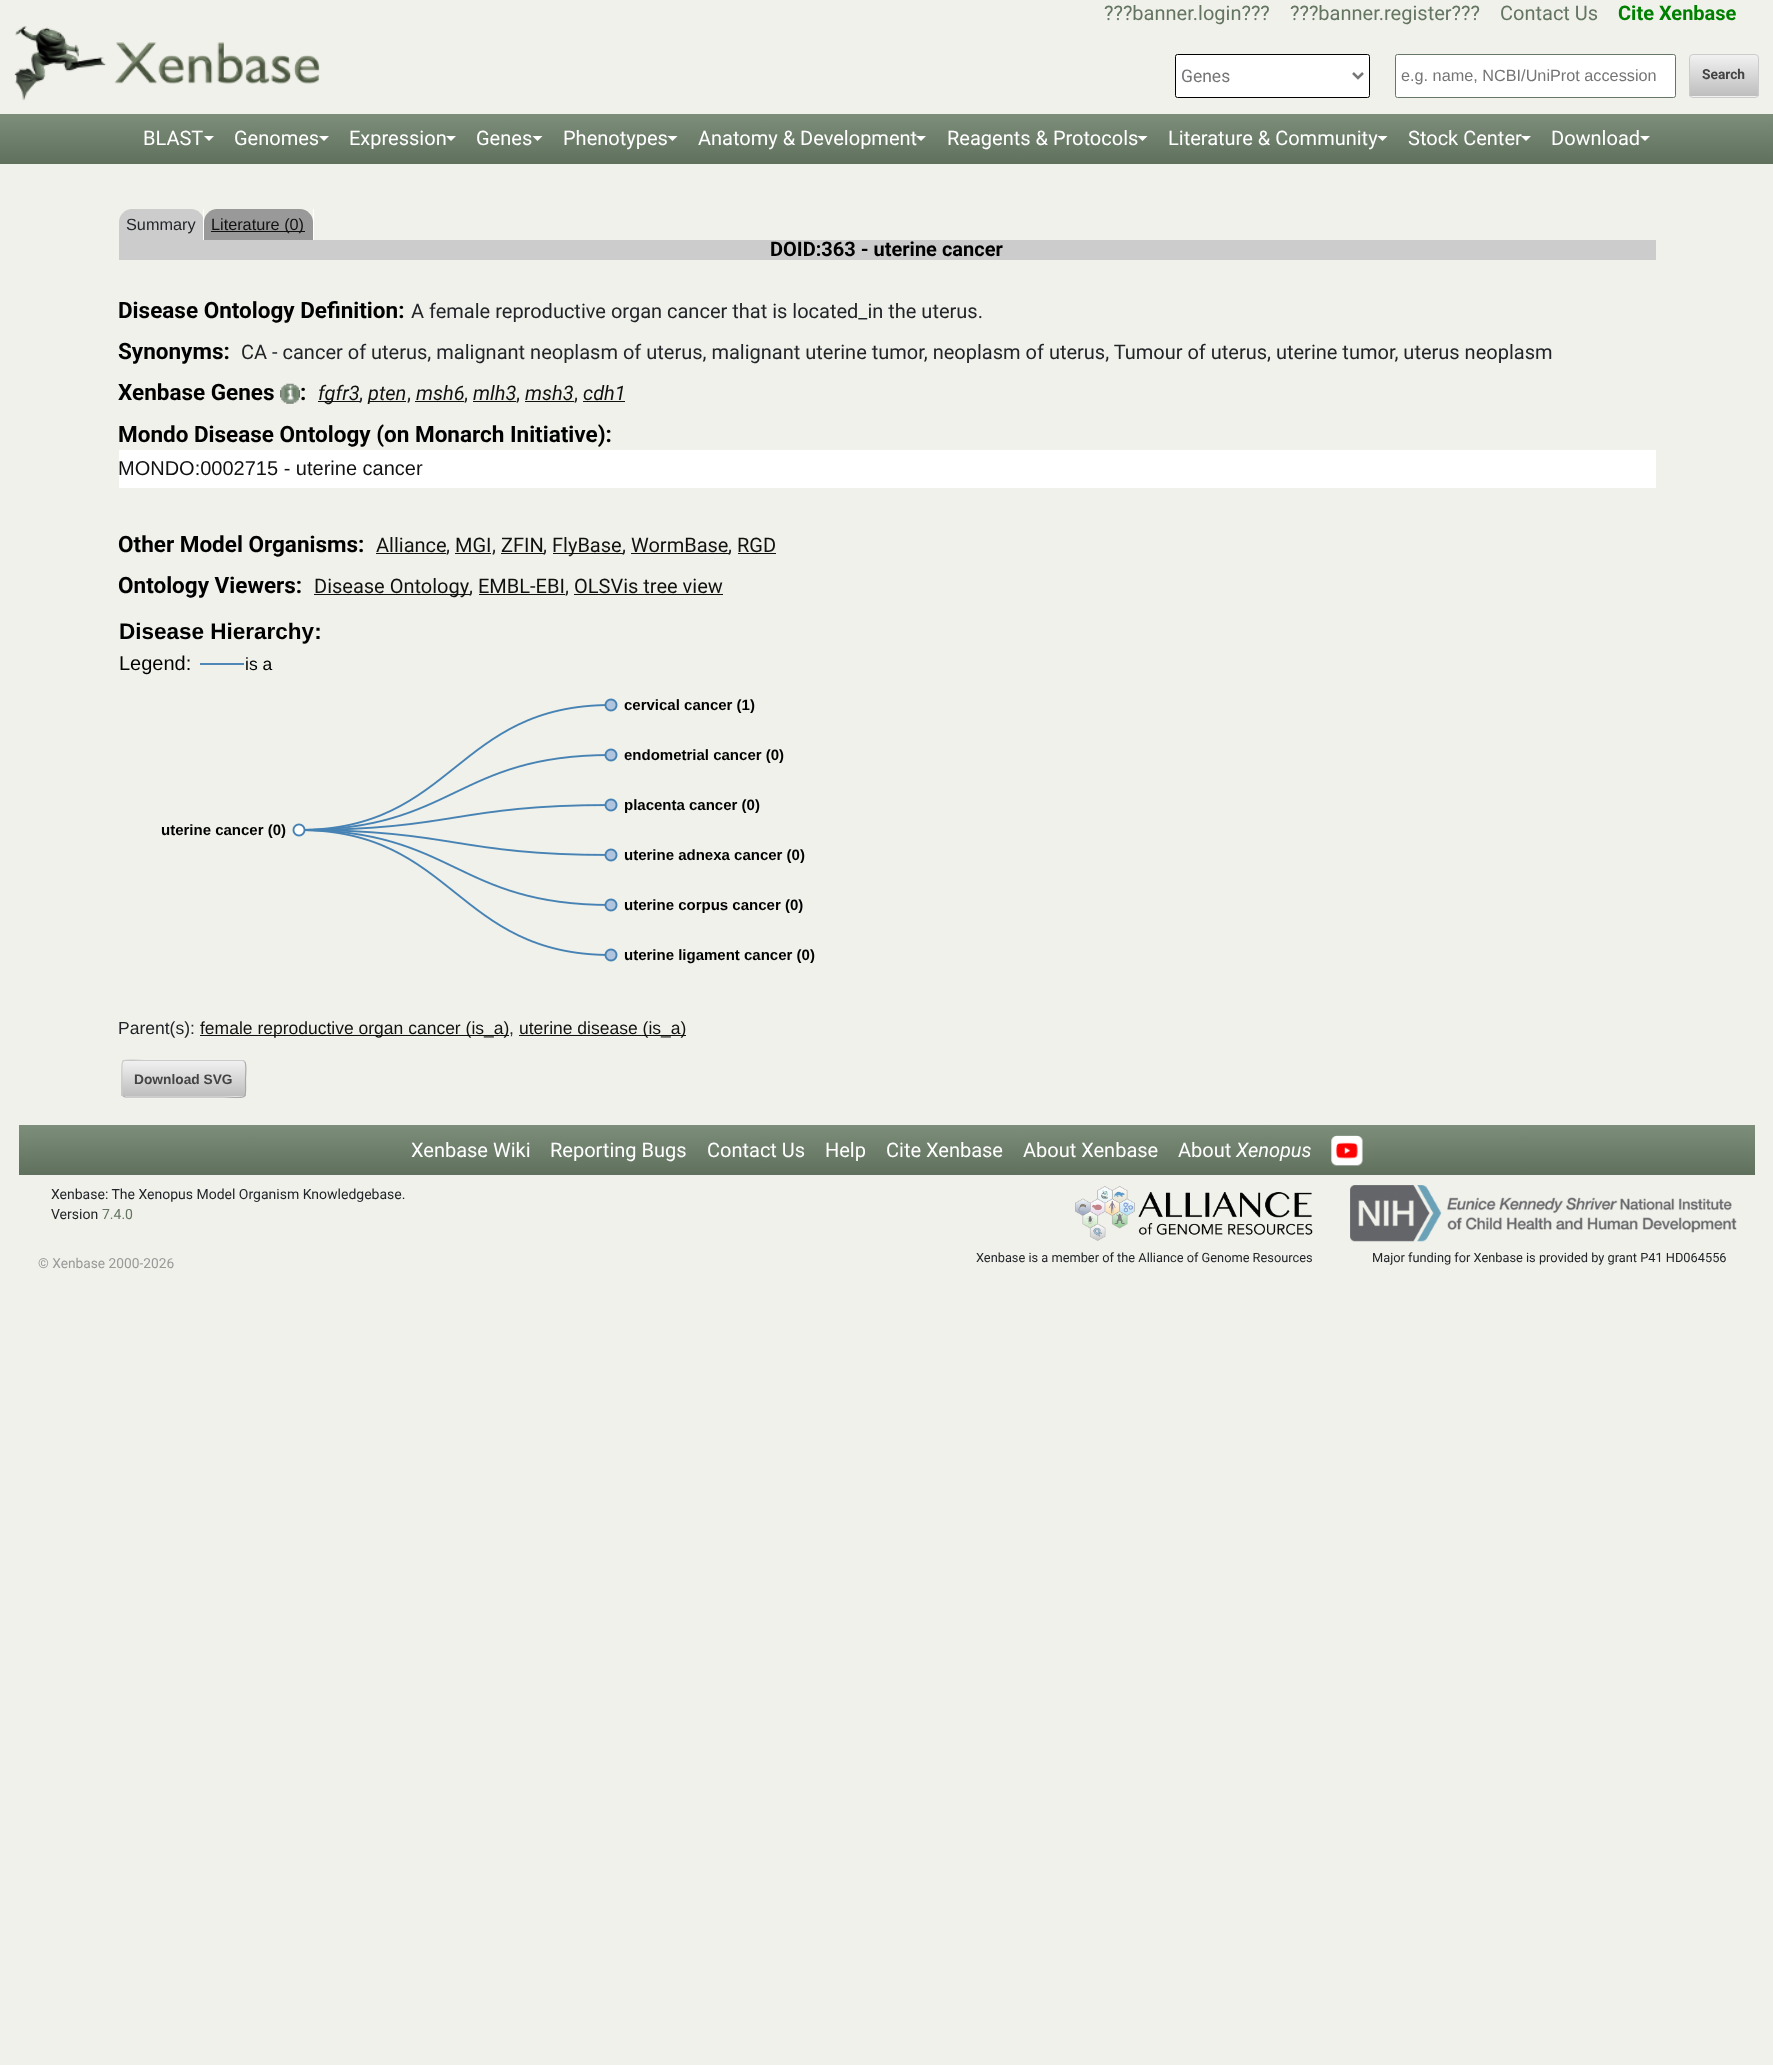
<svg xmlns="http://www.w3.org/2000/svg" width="1773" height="2065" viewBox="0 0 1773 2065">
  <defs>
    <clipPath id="clip1"><rect x="1689" y="54" width="70" height="44" rx="4"/></clipPath>
    <linearGradient id="g1" gradientUnits="userSpaceOnUse" x1="1724" y1="55" x2="1724" y2="96"><stop offset="0" stop-color="rgb(241,241,241)"/><stop offset="1" stop-color="rgb(190,190,190)"/></linearGradient>
    <linearGradient id="g2" gradientUnits="userSpaceOnUse" x1="1724" y1="96" x2="1724" y2="138"><stop offset="0" stop-color="rgb(241,241,241)"/><stop offset="1" stop-color="rgb(190,190,190)"/></linearGradient>
    <linearGradient id="g3" gradientUnits="userSpaceOnUse" x1="887" y1="114" x2="887" y2="164"><stop offset="0" stop-color="rgb(125,142,123)"/><stop offset="1" stop-color="rgb(95,112,93)"/></linearGradient>
    <clipPath id="clip2"><rect x="121" y="1060" width="125" height="38" rx="4"/></clipPath>
    <linearGradient id="g4" gradientUnits="userSpaceOnUse" x1="184" y1="1026" x2="184" y2="1061"><stop offset="0" stop-color="rgb(241,241,241)"/><stop offset="1" stop-color="rgb(190,190,190)"/></linearGradient>
    <linearGradient id="g5" gradientUnits="userSpaceOnUse" x1="184" y1="1061" x2="184" y2="1096"><stop offset="0" stop-color="rgb(241,241,241)"/><stop offset="1" stop-color="rgb(190,190,190)"/></linearGradient>
    <linearGradient id="g6" gradientUnits="userSpaceOnUse" x1="184" y1="1096" x2="184" y2="1131"><stop offset="0" stop-color="rgb(241,241,241)"/><stop offset="1" stop-color="rgb(190,190,190)"/></linearGradient>
    <linearGradient id="g7" gradientUnits="userSpaceOnUse" x1="887" y1="1125" x2="887" y2="1175"><stop offset="0" stop-color="rgb(125,142,123)"/><stop offset="1" stop-color="rgb(95,112,93)"/></linearGradient>
  </defs>
  <rect width="100%" height="100%" fill="rgb(240,241,234)"/>
  <g font-family="Roboto" font-size="20" fill="rgb(100,117,98)">
    <text x="1104" y="20">???banner.login???</text>
    <text x="1290" y="20">???banner.register???</text>
    <text x="1500" y="20">Contact Us</text>
  </g>
  <text x="1618" y="20" font-family="Roboto" font-size="20" font-weight="bold" fill="rgb(0,128,0)">Cite Xenbase</text>
  <image x="14" y="26" width="306" height="75" href="pic1.png"/>
  <rect x="1175.5" y="54.5" width="194" height="43" rx="2" fill="rgb(255,255,255)" stroke="rgb(0,0,0)"/>
  <path d="M1353 73L1358 78L1363 73" fill="none" stroke="rgb(119,119,119)" stroke-width="2.5"/>
  <text x="1181" y="82" font-family="Roboto" font-size="17.5" fill="rgb(117,117,117)">Genes</text>
  <rect x="1395.5" y="54.5" width="280" height="43" rx="2" fill="rgb(255,255,255)" stroke="rgb(102,119,100)"/>
  <text x="1401" y="81" font-family="Liberation Sans" font-size="16.25" fill="rgb(117,117,117)">e.g. name, NCBI/UniProt accession</text>
  <g clip-path="url(#clip1)">
    <rect x="1689" y="55" width="70" height="41" fill="url(#g1)"/>
    <rect x="1689" y="96" width="70" height="2" fill="url(#g2)"/>
  </g>
  <rect x="1689.5" y="54.5" width="69" height="43" rx="3.5" fill="none" stroke="rgb(204,204,204)"/>
  <text x="1702" y="79" font-family="Roboto" font-size="13.75" font-weight="bold" fill="rgb(68,68,68)">Search</text>
  <rect x="0" y="114" width="1773" height="50" fill="url(#g3)"/>
  <text x="143" y="145" font-family="Roboto" font-size="20" fill="rgb(255,255,255)">BLAST</text>
  <path d="M204 136H214L209 141Z" fill="rgb(255,255,255)"/>
  <text x="234" y="145" font-family="Roboto" font-size="20" fill="rgb(255,255,255)">Genomes</text>
  <path d="M319 136H329L324 141Z" fill="rgb(255,255,255)"/>
  <text x="349" y="145" font-family="Roboto" font-size="20" fill="rgb(255,255,255)">Expression</text>
  <path d="M446 136H456L451 141Z" fill="rgb(255,255,255)"/>
  <text x="476" y="145" font-family="Roboto" font-size="20" fill="rgb(255,255,255)">Genes</text>
  <path d="M532.5 136H542.5L537.5 141Z" fill="rgb(255,255,255)"/>
  <text x="563" y="145" font-family="Roboto" font-size="20" fill="rgb(255,255,255)">Phenotypes</text>
  <path d="M667.5 136H677.5L672.5 141Z" fill="rgb(255,255,255)"/>
  <text x="698" y="145" font-family="Roboto" font-size="20" fill="rgb(255,255,255)">Anatomy &amp; Development</text>
  <path d="M916 136H926L921 141Z" fill="rgb(255,255,255)"/>
  <text x="947" y="145" font-family="Roboto" font-size="20" fill="rgb(255,255,255)">Reagents &amp; Protocols</text>
  <path d="M1137.5 136H1147.5L1142.5 141Z" fill="rgb(255,255,255)"/>
  <text x="1168" y="145" font-family="Roboto" font-size="20" fill="rgb(255,255,255)">Literature &amp; Community</text>
  <path d="M1377.5 136H1387.5L1382.5 141Z" fill="rgb(255,255,255)"/>
  <text x="1408" y="145" font-family="Roboto" font-size="20" fill="rgb(255,255,255)">Stock Center</text>
  <path d="M1521 136H1531L1526 141Z" fill="rgb(255,255,255)"/>
  <text x="1551" y="145" font-family="Roboto" font-size="20" fill="rgb(255,255,255)">Download</text>
  <path d="M1640 136H1650L1645 141Z" fill="rgb(255,255,255)"/>
  <path d="M132 209H191C198 209 204 215 204 222V240H119V222C119 215 125 209 132 209Z" fill="rgb(204,204,204)"/>
  <rect x="203" y="209" width="1" height="32" fill="rgb(255,255,255)"/>
  <text x="126" y="230" font-family="Liberation Sans" font-size="16.25" fill="rgb(33,37,41)">Summary</text>
  <path d="M217 209H300C307 209 313 215 313 222V240H204V222C204 215 210 209 217 209Z" fill="rgb(153,153,153)"/>
  <rect x="313" y="209" width="1" height="32" fill="rgb(255,255,255)"/>
  <rect x="211" y="231" width="94" height="1" fill="rgb(17,17,17)"/>
  <text x="211" y="230" font-family="Liberation Sans" font-size="16.25" fill="rgb(17,17,17)">Literature (0)</text>
  <rect x="119" y="240" width="1537" height="20" fill="rgb(204,204,204)"/>
  <text x="770" y="256" font-family="Roboto" font-size="20" font-weight="bold" fill="rgb(0,0,0)">DOID:363 - uterine cancer</text>
  <text x="118" y="318" font-family="Roboto" font-size="22.5" font-weight="bold" fill="rgb(0,0,0)">Disease Ontology Definition:</text>
  <text x="411" y="318" font-family="Roboto" font-size="20" fill="rgb(33,37,41)">A female reproductive organ cancer that is located_in the uterus.</text>
  <text x="118" y="359" font-family="Roboto" font-size="22.5" font-weight="bold" fill="rgb(0,0,0)">Synonyms:</text>
  <text x="241" y="359" font-family="Roboto" font-size="20" fill="rgb(33,37,41)">CA - cancer of uterus, malignant neoplasm of uterus, malignant uterine tumor, neoplasm of uterus, Tumour of uterus, uterine tumor, uterus neoplasm</text>
  <text x="118" y="400" font-family="Roboto" font-size="22.5" font-weight="bold" fill="rgb(0,0,0)">Xenbase Genes</text>
  <image x="280" y="383" width="20" height="21" href="pic2.png"/>
  <text x="300" y="400" font-family="Roboto" font-size="22.5" font-weight="bold" fill="rgb(0,0,0)">:</text>
  <rect x="318" y="401" width="42" height="1" fill="rgb(17,17,17)"/>
  <text x="318" y="400" font-family="Roboto" font-size="20" font-style="italic" fill="rgb(17,17,17)">fgfr3</text>
  <text x="359" y="400" font-family="Roboto" font-size="20" fill="rgb(33,37,41)">,</text>
  <rect x="369" y="401" width="37" height="1" fill="rgb(17,17,17)"/>
  <text x="368" y="400" font-family="Roboto" font-size="20" font-style="italic" fill="rgb(17,17,17)">pten</text>
  <text x="407" y="400" font-family="Roboto" font-size="20" fill="rgb(33,37,41)">,</text>
  <text x="416" y="400" font-family="Roboto" font-size="20" font-style="italic" fill="rgb(17,17,17)">msh6</text>
  <text x="464" y="400" font-family="Roboto" font-size="20" fill="rgb(33,37,41)">,</text>
  <rect x="415" y="401" width="49" height="1" fill="rgb(17,17,17)"/>
  <text x="473" y="400" font-family="Roboto" font-size="20" font-style="italic" fill="rgb(17,17,17)">mlh3</text>
  <text x="516" y="400" font-family="Roboto" font-size="20" fill="rgb(33,37,41)">,</text>
  <rect x="473" y="401" width="43" height="1" fill="rgb(17,17,17)"/>
  <text x="525" y="400" font-family="Roboto" font-size="20" font-style="italic" fill="rgb(17,17,17)">msh3</text>
  <text x="574" y="400" font-family="Roboto" font-size="20" fill="rgb(33,37,41)">,</text>
  <rect x="525" y="401" width="49" height="1" fill="rgb(17,17,17)"/>
  <text x="583" y="400" font-family="Roboto" font-size="20" font-style="italic" fill="rgb(17,17,17)">cdh1</text>
  <rect x="583" y="401" width="42" height="1" fill="rgb(17,17,17)"/>
  <text x="118" y="442" font-family="Roboto" font-size="22.5" font-weight="bold" fill="rgb(0,0,0)">Mondo Disease Ontology (on Monarch Initiative):</text>
  <rect x="119" y="450" width="1537" height="38" fill="rgb(255,255,255)"/>
  <text x="118" y="475" font-family="Liberation Sans" font-size="20" fill="rgb(17,17,17)">MONDO:0002715 - uterine cancer</text>
  <text x="118" y="552" font-family="Roboto" font-size="22.5" font-weight="bold" fill="rgb(0,0,0)">Other Model Organisms:</text>
  <text x="376" y="552" font-family="Roboto" font-size="20" fill="rgb(17,17,17)">Alliance</text>
  <rect x="376" y="553" width="70" height="1" fill="rgb(17,17,17)"/>
  <text x="446" y="552" font-family="Roboto" font-size="20" fill="rgb(33,37,41)">,</text>
  <text x="455" y="552" font-family="Roboto" font-size="20" fill="rgb(17,17,17)">MGI</text>
  <rect x="455" y="553" width="36" height="1" fill="rgb(17,17,17)"/>
  <text x="492" y="552" font-family="Roboto" font-size="20" fill="rgb(33,37,41)">,</text>
  <text x="501" y="552" font-family="Roboto" font-size="20" fill="rgb(17,17,17)">ZFIN</text>
  <rect x="501" y="553" width="43" height="1" fill="rgb(17,17,17)"/>
  <text x="543" y="552" font-family="Roboto" font-size="20" fill="rgb(33,37,41)">,</text>
  <rect x="553" y="553" width="70" height="1" fill="rgb(17,17,17)"/>
  <text x="552" y="552" font-family="Roboto" font-size="20" fill="rgb(17,17,17)">FlyBase</text>
  <text x="622" y="552" font-family="Roboto" font-size="20" fill="rgb(33,37,41)">,</text>
  <text x="631" y="552" font-family="Roboto" font-size="20" fill="rgb(17,17,17)">WormBase</text>
  <rect x="631" y="553" width="98" height="1" fill="rgb(17,17,17)"/>
  <text x="728" y="552" font-family="Roboto" font-size="20" fill="rgb(33,37,41)">,</text>
  <text x="737" y="552" font-family="Roboto" font-size="20" fill="rgb(17,17,17)">RGD</text>
  <rect x="738" y="553" width="38" height="1" fill="rgb(17,17,17)"/>
  <text x="118" y="593" font-family="Roboto" font-size="22.5" font-weight="bold" fill="rgb(0,0,0)">Ontology Viewers:</text>
  <rect x="314" y="594" width="156" height="1" fill="rgb(17,17,17)"/>
  <text x="314" y="593" font-family="Roboto" font-size="20" fill="rgb(17,17,17)">Disease Ontology</text>
  <text x="469" y="593" font-family="Roboto" font-size="20" fill="rgb(33,37,41)">,</text>
  <text x="478" y="593" font-family="Roboto" font-size="20" fill="rgb(17,17,17)">EMBL-EBI</text>
  <text x="565" y="593" font-family="Roboto" font-size="20" fill="rgb(33,37,41)">,</text>
  <rect x="479" y="594" width="86" height="1" fill="rgb(17,17,17)"/>
  <rect x="574" y="594" width="149" height="1" fill="rgb(17,17,17)"/>
  <text x="574" y="593" font-family="Roboto" font-size="20" fill="rgb(17,17,17)">OLSVis tree view</text>
  <text x="119" y="639" font-family="Liberation Sans" font-size="22.5" font-weight="bold" fill="rgb(0,0,0)">Disease Hierarchy:</text>
  <text x="119" y="670" font-family="Liberation Sans" font-size="20" fill="rgb(0,0,0)">Legend:</text>
  <image x="200" y="663" width="418" height="299" href="pic3.png"/>
  <text x="245" y="670" font-family="Liberation Sans" font-size="17.5" fill="rgb(0,0,0)">is a</text>
  <g font-family="Liberation Sans" font-size="15" font-weight="bold" fill="rgb(0,0,0)">
    <text x="624" y="710">cervical cancer (1)</text>
    <text x="624" y="760">endometrial cancer (0)</text>
    <text x="624" y="810">placenta cancer (0)</text>
    <text x="161" y="835">uterine cancer (0)</text>
    <text x="624" y="860">uterine adnexa cancer (0)</text>
    <text x="624" y="910">uterine corpus cancer (0)</text>
    <text x="624" y="960">uterine ligament cancer (0)</text>
  </g>
  <text x="118" y="1034" font-family="Liberation Sans" font-size="17.5" fill="rgb(33,37,41)">Parent(s):</text>
  <rect x="200" y="1035" width="309" height="1" fill="rgb(17,17,17)"/>
  <text x="200" y="1034" font-family="Liberation Sans" font-size="17.5" fill="rgb(17,17,17)">female reproductive organ cancer (is_a)</text>
  <text x="509" y="1034" font-family="Liberation Sans" font-size="17.5" fill="rgb(33,37,41)">,</text>
  <rect x="519" y="1035" width="167" height="1" fill="rgb(17,17,17)"/>
  <text x="519" y="1034" font-family="Liberation Sans" font-size="17.5" fill="rgb(17,17,17)">uterine disease (is_a)</text>
  <g clip-path="url(#clip2)">
    <rect x="121" y="1060" width="125" height="1" fill="url(#g4)"/>
    <rect x="121" y="1061" width="125" height="35" fill="url(#g5)"/>
    <rect x="121" y="1096" width="125" height="2" fill="url(#g6)"/>
  </g>
  <path d="M244.5 1061.5C247 1063.5 245.5 1075.5 245.5 1079C245.5 1102 249 1097 223 1097H125L123 1096" fill="none" stroke="rgb(170,170,170)" stroke-width="1.2"/>
  <path d="M123 1096C120.5 1094 122 1082 122 1079C122 1055.5 118.5 1060.5 144.5 1060.5H242.5L244.5 1061.5" fill="none" stroke="rgb(204,204,204)" stroke-width="1.2"/>
  <text x="134" y="1084" font-family="Liberation Sans" font-size="13.75" font-weight="bold" fill="rgb(68,68,68)">Download SVG</text>
  <rect x="19" y="1125" width="1736" height="50" fill="url(#g7)"/>
  <g font-family="Roboto" font-size="20" fill="rgb(255,255,255)">
    <text x="411" y="1157">Xenbase Wiki</text>
    <text x="550" y="1157">Reporting Bugs</text>
    <text x="707" y="1157">Contact Us</text>
    <text x="825" y="1157">Help</text>
    <text x="886" y="1157">Cite Xenbase</text>
    <text x="1023" y="1157">About Xenbase</text>
    <text x="1178" y="1157">About</text>
  </g>
  <text x="1236" y="1157" font-family="Roboto" font-size="20" font-style="italic" fill="rgb(255,255,255)">Xenopus</text>
  <image x="1331" y="1135" width="32" height="31" href="pic4.png"/>
  <g font-family="Roboto" font-size="14" fill="rgb(33,37,41)">
    <text>
      <tspan x="51" y="1199">Xenbase: The Xenopus Model Organism Knowledgebase.</tspan>
      <tspan x="51" y="1219">Version</tspan>
    </text>
  </g>
  <text x="102" y="1219" font-family="Roboto" font-size="14" fill="rgb(100,117,98)">7.4.0</text>
  <text x="38" y="1268" font-family="Roboto" font-size="13.75" fill="rgb(153,153,153)">© Xenbase 2000-2026</text>
  <image x="1075" y="1186" width="238" height="55" href="pic5.png"/>
  <text x="976" y="1262" font-family="Roboto" font-size="12.8" fill="rgb(33,37,41)">Xenbase is a member of the Alliance of Genome Resources</text>
  <image x="1350" y="1185" width="387" height="57" href="pic6.png"/>
  <text x="1372" y="1262" font-family="Roboto" font-size="12.8" fill="rgb(33,37,41)">Major funding for Xenbase is provided by grant P41 HD064556</text>
</svg>
